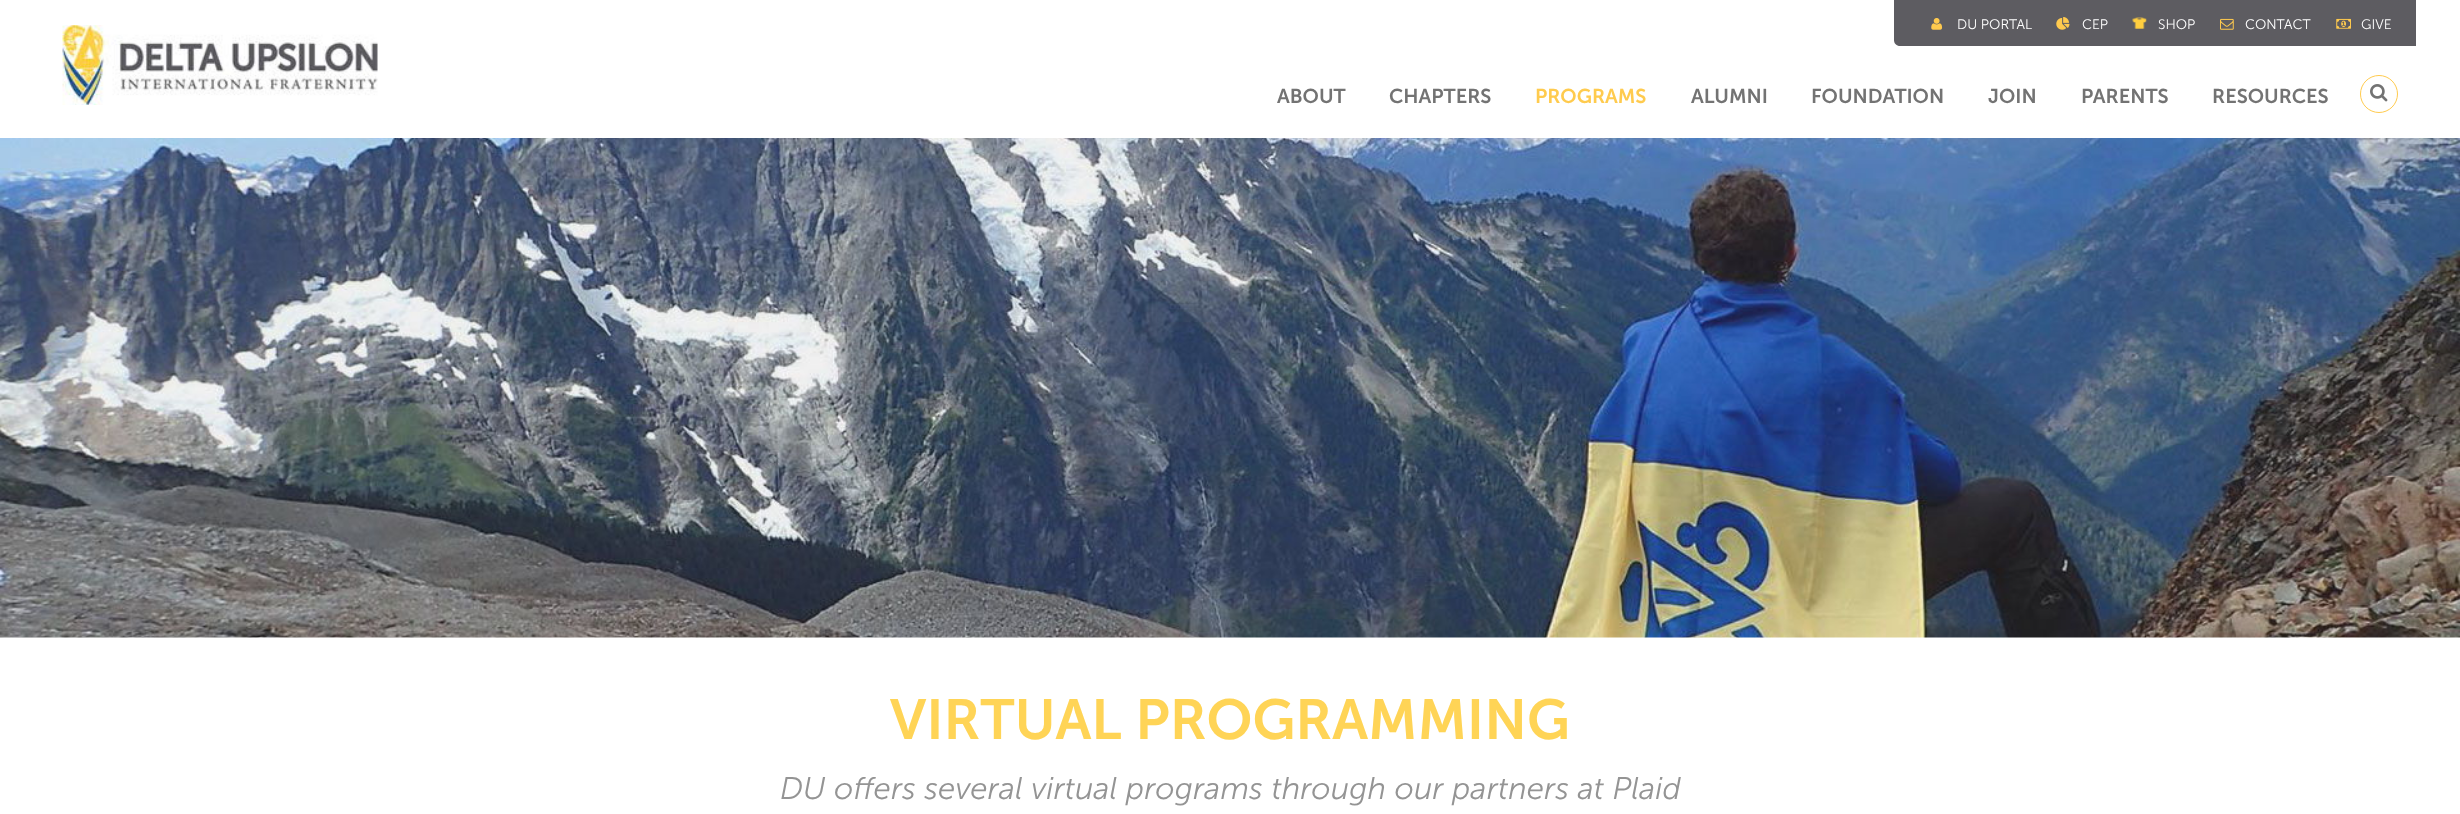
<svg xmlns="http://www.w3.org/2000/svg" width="2460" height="814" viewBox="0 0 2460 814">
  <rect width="100%" height="100%" fill="rgb(255,255,255)"/>
  <image x="62" y="25" width="316" height="80" href="pic1.png"/>
  <path d="M1894 0H2416V46H1900C1896.5 46 1894 43.5 1894 40Z" fill="rgb(93,92,97)"/>
  <image x="1931" y="18" width="12" height="12" href="pic2.png"/>
  <text x="1957" y="29" font-family="'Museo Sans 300'" font-size="13.75" font-weight="300" fill="rgb(255,255,255)">DU PORTAL</text>
  <image x="2056" y="17" width="14" height="13" href="pic3.png"/>
  <text x="2082" y="29" font-family="'Museo Sans 300'" font-size="13.75" font-weight="300" fill="rgb(255,255,255)">CEP</text>
  <image x="2132" y="17" width="15" height="12" href="pic4.png"/>
  <text x="2158" y="29" font-family="'Museo Sans 300'" font-size="13.75" font-weight="300" fill="rgb(255,255,255)">SHOP</text>
  <image x="2220" y="18" width="14" height="12" href="pic5.png"/>
  <text x="2245" y="29" font-family="'Museo Sans 300'" font-size="13.75" font-weight="300" fill="rgb(255,255,255)">CONTACT</text>
  <image x="2336" y="18" width="15" height="11" href="pic6.png"/>
  <text x="2361" y="29" font-family="'Museo Sans 300'" font-size="13.75" font-weight="300" fill="rgb(255,255,255)">GIVE</text>
  <g font-family="'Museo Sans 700'" font-size="20" font-weight="600" fill="rgb(115,115,115)">
    <text x="1277" y="103">ABOUT</text>
    <text x="1389" y="103">CHAPTERS</text>
  </g>
  <text x="1535" y="103" font-family="'Museo Sans 700'" font-size="20" font-weight="600" fill="rgb(255,203,78)">PROGRAMS</text>
  <g font-family="'Museo Sans 700'" font-size="20" font-weight="600" fill="rgb(115,115,115)">
    <text x="1691" y="103">ALUMNI</text>
    <text x="1811" y="103">FOUNDATION</text>
    <text x="1988" y="103">JOIN</text>
    <text x="2081" y="103">PARENTS</text>
    <text x="2212" y="103">RESOURCES</text>
  </g>
  <circle cx="2379" cy="94" r="18.5" fill="none" stroke="rgb(255,203,78)"/>
  <image x="2370" y="84" width="18" height="18" href="pic7.png"/>
  <image x="0" y="138" width="2460" height="500" href="pic8.png"/>
  <text x="890" y="739" font-family="'Museo Sans 700'" font-size="56.25" font-weight="600" fill="rgb(255,212,86)">VIRTUAL PROGRAMMING</text>
  <text x="780" y="799" font-family="'Museo Sans 300'" font-size="31.25" font-weight="300" font-style="italic" fill="rgb(148,148,148)">DU offers several virtual programs through our partners at Plaid</text>
</svg>
